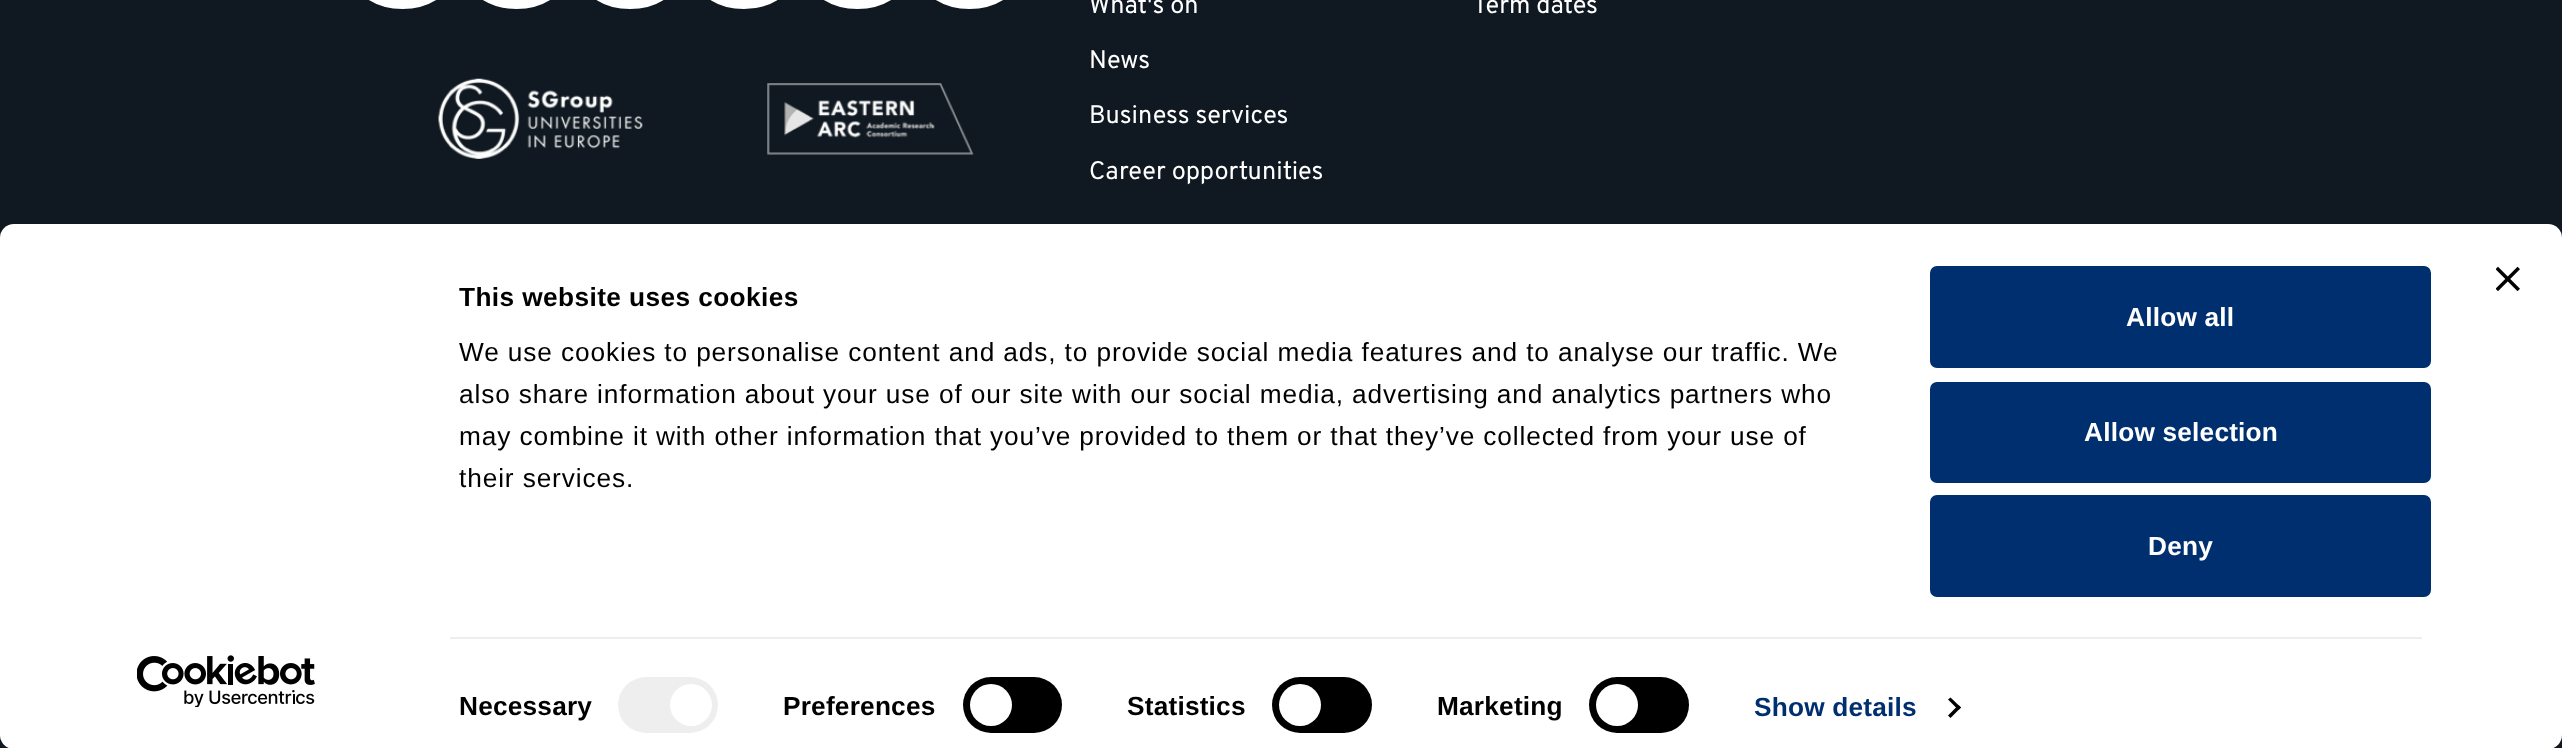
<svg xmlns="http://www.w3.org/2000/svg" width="2562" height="748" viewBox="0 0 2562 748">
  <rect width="100%" height="100%" fill="rgb(16,25,33)"/>
  <rect x="357.5" y="-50.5" width="90" height="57" rx="45" fill="rgb(255,255,255)" stroke="rgb(255,255,255)" stroke-width="5"/>
  <rect x="471.5" y="-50.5" width="90" height="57" rx="45" fill="rgb(255,255,255)" stroke="rgb(255,255,255)" stroke-width="5"/>
  <rect x="585.5" y="-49.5" width="89" height="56" rx="44.5" fill="rgb(255,255,255)" stroke="rgb(255,255,255)" stroke-width="5"/>
  <rect x="699.5" y="-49.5" width="89" height="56" rx="44.5" fill="rgb(255,255,255)" stroke="rgb(255,255,255)" stroke-width="5"/>
  <rect x="812.5" y="-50.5" width="90" height="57" rx="45" fill="rgb(255,255,255)" stroke="rgb(255,255,255)" stroke-width="5"/>
  <rect x="924.5" y="-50.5" width="90" height="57" rx="45" fill="rgb(255,255,255)" stroke="rgb(255,255,255)" stroke-width="5"/>
  <image x="438" y="78" width="205" height="81" href="pic1.png"/>
  <image x="767" y="83" width="207" height="72" href="pic2.png"/>
  <g font-family="Overpass" font-size="25.25" fill="rgb(255,255,255)">
    <text x="1089" y="13">What's on</text>
    <text x="1089" y="68">News</text>
    <text x="1089" y="123">Business services</text>
    <text x="1089" y="179">Career opportunities</text>
    <text x="1473" y="13">Term dates</text>
  </g>
  <rect x="0" y="224" width="2562" height="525" rx="14" fill="rgb(255,255,255)"/>
  <image x="2496" y="266" width="24" height="25" href="pic3.png"/>
  <text x="459" y="306" font-family="Liberation Sans" font-size="26.25" font-weight="bold" letter-spacing="0.4" fill="rgb(0,0,0)">This website uses cookies</text>
  <g font-family="Liberation Sans" font-size="26.25" letter-spacing="0.88" fill="rgb(0,0,0)">
    <text>
      <tspan x="459" y="361">We use cookies to personalise content and ads, to provide social media features and to analyse our traffic. We</tspan>
      <tspan x="459" y="403">also share information about your use of our site with our social media, advertising and analytics partners who</tspan>
      <tspan x="459" y="445">may combine it with other information that you’ve provided to them or that they’ve collected from your use of</tspan>
      <tspan x="459" y="487">their services.</tspan>
    </text>
  </g>
  <rect x="450" y="637" width="1972" height="2" fill="rgb(238,238,238)"/>
  <text x="459" y="715" font-family="Liberation Sans" font-size="26.25" font-weight="bold" letter-spacing="0.2" fill="rgb(0,0,0)">Necessary</text>
  <rect x="618" y="677" width="100" height="56" rx="28" fill="rgb(238,238,238)"/>
  <circle cx="691" cy="705" r="21" fill="rgb(255,255,255)"/>
  <text x="783" y="715" font-family="Liberation Sans" font-size="26.25" font-weight="bold" letter-spacing="0.2" fill="rgb(0,0,0)">Preferences</text>
  <rect x="963" y="677" width="99" height="56" rx="28" fill="rgb(0,0,0)"/>
  <circle cx="991" cy="705" r="21" fill="rgb(255,255,255)"/>
  <text x="1127" y="715" font-family="Liberation Sans" font-size="26.25" font-weight="bold" letter-spacing="0.2" fill="rgb(0,0,0)">Statistics</text>
  <rect x="1272" y="677" width="100" height="56" rx="28" fill="rgb(0,0,0)"/>
  <circle cx="1300" cy="705" r="21" fill="rgb(255,255,255)"/>
  <text x="1437" y="715" font-family="Liberation Sans" font-size="26.25" font-weight="bold" letter-spacing="0.2" fill="rgb(0,0,0)">Marketing</text>
  <rect x="1589" y="677" width="100" height="56" rx="28" fill="rgb(0,0,0)"/>
  <circle cx="1617" cy="705" r="21" fill="rgb(255,255,255)"/>
  <text x="1754" y="716" font-family="Liberation Sans" font-size="26.25" font-weight="bold" letter-spacing="0.2" fill="rgb(0,47,112)">Show details</text>
  <path d="M1950.5 697.5L1961 707.5L1958.5 710L1948 699.5Z" fill="rgb(0,0,0)"/>
  <path d="M1958.5 705L1961 707.5L1950.5 718L1948 715.5Z" fill="rgb(0,0,0)"/>
  <rect x="1932" y="268" width="497" height="98" rx="5" fill="rgb(0,47,112)" stroke="rgb(0,47,112)" stroke-width="4"/>
  <text x="2126" y="326" font-family="Liberation Sans" font-size="26.25" font-weight="bold" letter-spacing="0.2" fill="rgb(255,255,255)">Allow all</text>
  <rect x="1932" y="384" width="497" height="97" rx="5" fill="rgb(0,47,112)" stroke="rgb(0,47,112)" stroke-width="4"/>
  <text x="2084" y="441" font-family="Liberation Sans" font-size="26.25" font-weight="bold" letter-spacing="0.2" fill="rgb(255,255,255)">Allow selection</text>
  <rect x="1932" y="497" width="497" height="98" rx="5" fill="rgb(0,47,112)" stroke="rgb(0,47,112)" stroke-width="4"/>
  <text x="2148" y="555" font-family="Liberation Sans" font-size="26.25" font-weight="bold" letter-spacing="0.2" fill="rgb(255,255,255)">Deny</text>
  <image x="137" y="655" width="178" height="52" href="pic4.png"/>
</svg>
